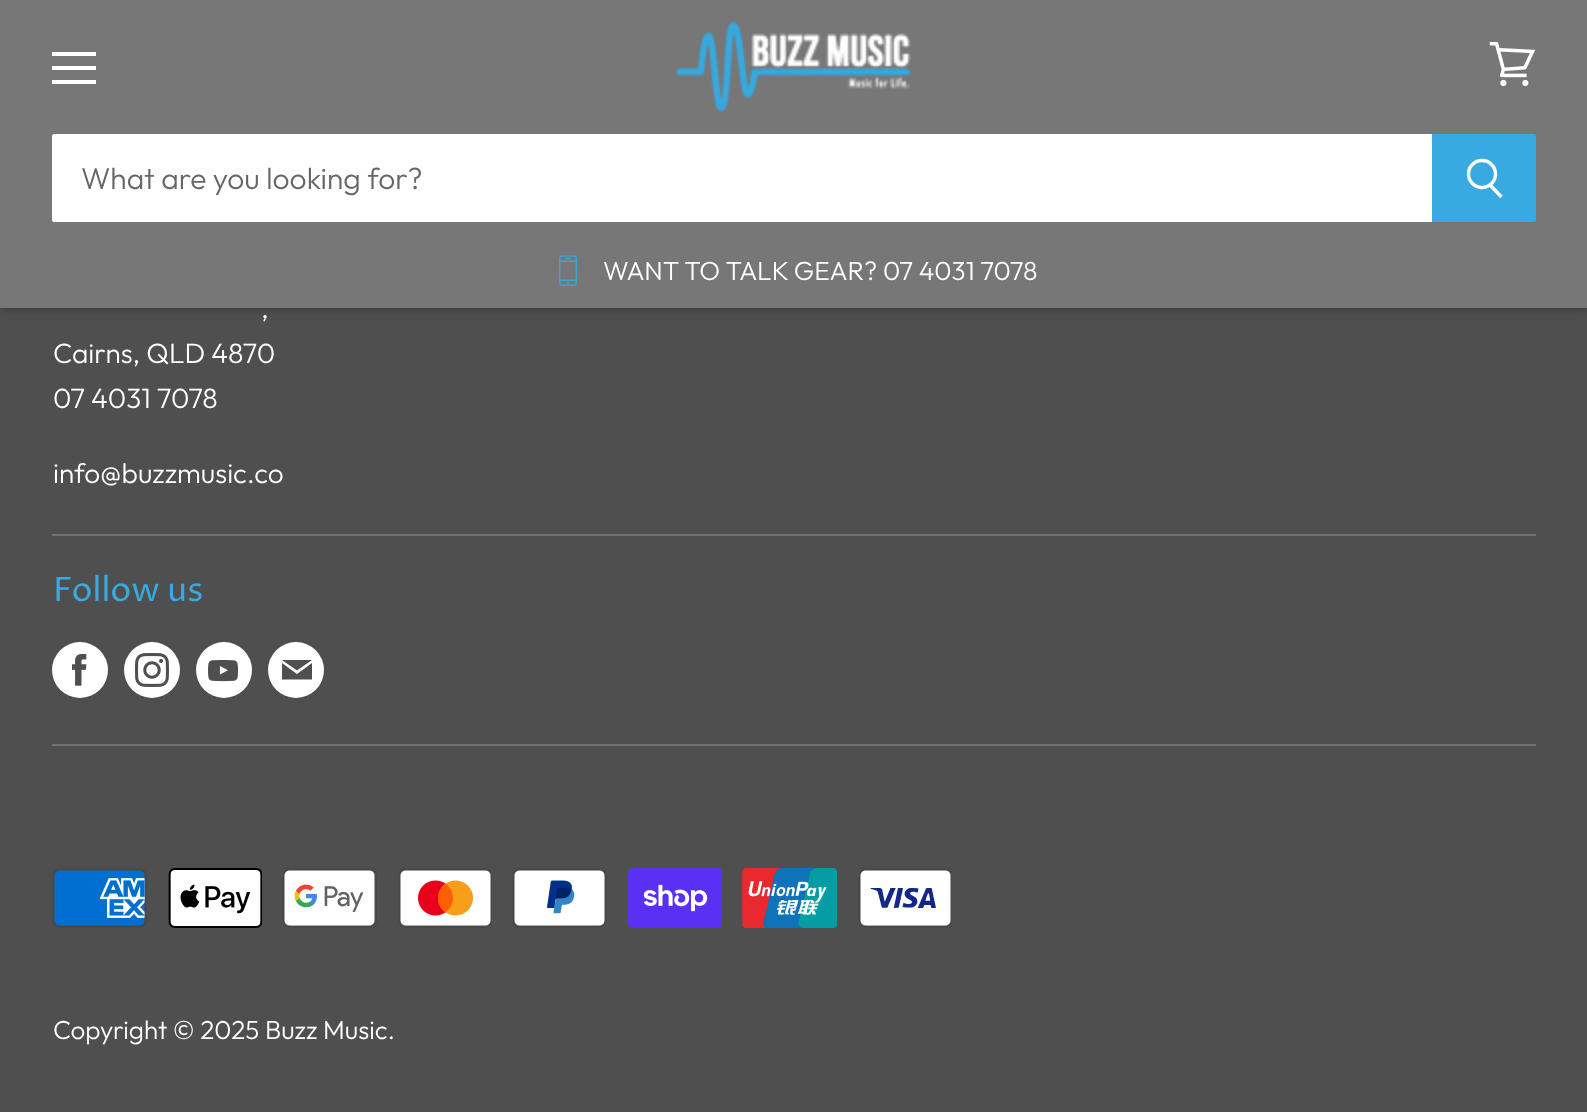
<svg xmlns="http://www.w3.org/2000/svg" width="1587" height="1112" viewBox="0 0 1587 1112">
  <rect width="100%" height="100%" fill="rgb(79,79,79)"/>
  <rect x="0" y="2" width="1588" height="308" fill="rgba(0,0,0,0.25)" filter="blur(4px)"/>
  <rect x="0" y="0" width="1587" height="308" fill="rgb(119,119,119)"/>
  <rect x="52" y="52" width="44" height="4" fill="rgb(255,255,255)"/>
  <rect x="52" y="66" width="44" height="4" fill="rgb(255,255,255)"/>
  <rect x="52" y="80" width="44" height="4" fill="rgb(255,255,255)"/>
  <image x="1489" y="41" width="47" height="46" href="pic1.png"/>
  <image x="675" y="21" width="236" height="91" href="pic2.png"/>
  <path d="M54 134H1432V222H54C53 222 52 221 52 220V136C52 135 53 134 54 134Z" fill="rgb(255,255,255)"/>
  <text x="81" y="189" font-family="Outfit" font-size="30" font-weight="300" fill="rgb(102,102,102)">What are you looking for?</text>
  <path d="M1432 134H1534C1535 134 1536 135 1536 136V220C1536 221 1535 222 1534 222H1432Z" fill="rgb(56,170,225)"/>
  <path d="M1501.5 197L1490 185" fill="none" stroke="rgb(255,255,255)" stroke-width="3.4"/>
  <circle cx="1482" cy="174" r="13.5" fill="none" stroke="rgb(255,255,255)" stroke-width="3.4"/>
  <image x="559" y="255" width="18" height="31" href="pic3.png"/>
  <g font-family="Outfit" font-size="26.25" font-weight="300" fill="rgb(255,255,255)">
    <text x="603" y="280">WANT TO TALK GEAR?</text>
    <text x="883" y="280">07 4031 7078</text>
  </g>
  <rect x="52" y="534" width="1484" height="2" fill="rgb(114,114,114)"/>
  <g font-family="Outfit" font-size="28" font-weight="300" fill="rgb(255,255,255)">
    <text x="261" y="318">,</text>
    <text>
      <tspan x="53" y="363">Cairns, QLD 4870</tspan>
      <tspan x="53" y="408">07 4031 7078</tspan>
    </text>
    <text x="53" y="483">info@buzzmusic.co</text>
  </g>
  <rect x="52" y="744" width="1484" height="2" fill="rgb(114,114,114)"/>
  <text x="53" y="601" font-family="Proza Libre" font-size="33.5" fill="rgb(56,170,225)">Follow us</text>
  <circle cx="80" cy="670" r="28" fill="rgb(255,255,255)"/>
  <image x="72" y="654" width="15" height="32" href="pic4.png"/>
  <circle cx="152" cy="670" r="28" fill="rgb(255,255,255)"/>
  <image x="135" y="653" width="34" height="34" href="pic5.png"/>
  <circle cx="224" cy="670" r="28" fill="rgb(255,255,255)"/>
  <image x="208" y="660" width="31" height="22" href="pic6.png"/>
  <circle cx="296" cy="670" r="28" fill="rgb(255,255,255)"/>
  <path d="M312 660H282L297 670.5ZM297 674L282 663V679.5H312V663Z" fill="rgb(79,79,79)" fill-rule="evenodd"/>
  <image x="52" y="868" width="95" height="60" href="pic7.png"/>
  <image x="168" y="868" width="94" height="60" href="pic8.png"/>
  <image x="282" y="868" width="95" height="60" href="pic9.png"/>
  <image x="398" y="868" width="94" height="60" href="pic10.png"/>
  <image x="512" y="868" width="95" height="60" href="pic11.png"/>
  <image x="628" y="868" width="94" height="60" href="pic12.png"/>
  <image x="742" y="868" width="95" height="60" href="pic13.png"/>
  <image x="858" y="868" width="94" height="60" href="pic14.png"/>
  <text x="53" y="1039" font-family="Outfit" font-size="26" font-weight="300" fill="rgb(255,255,255)">Copyright © 2025 Buzz Music.</text>
</svg>
